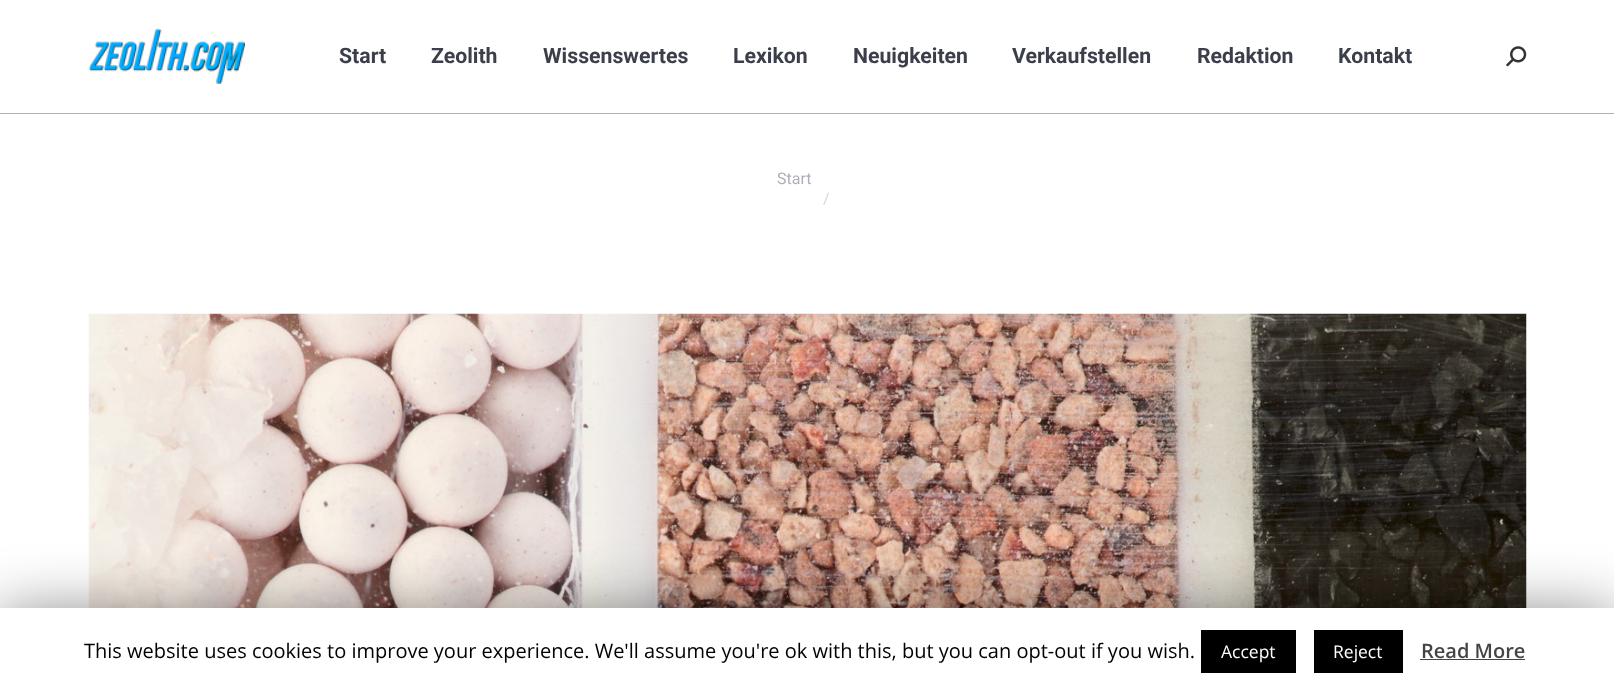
<svg xmlns="http://www.w3.org/2000/svg" width="1614" height="694" viewBox="0 0 1614 694">
  <rect width="100%" height="100%" fill="rgb(255,255,255)"/>
  <rect x="0" y="113" width="1614" height="1" fill="rgb(173,176,182)"/>
  <image x="88" y="28" width="157" height="56" href="pic1.png"/>
  <g font-family="Roboto" font-size="21.25" font-weight="bold" fill="rgb(59,63,74)">
    <text x="339" y="63">Start</text>
    <text x="431" y="63">Zeolith</text>
    <text x="543" y="63">Wissenswertes</text>
    <text x="733" y="63">Lexikon</text>
    <text x="853" y="63">Neuigkeiten</text>
    <text x="1012" y="63">Verkaufstellen</text>
    <text x="1197" y="63">Redaktion</text>
    <text x="1338" y="63">Kontakt</text>
  </g>
  <image x="1506" y="46" width="21" height="21" href="pic2.png"/>
  <text x="777" y="184" font-family="Roboto" font-size="16" fill="rgb(173,176,182)">Start</text>
  <text x="823" y="204" font-family="Roboto" font-size="16" fill="rgb(214,216,219)">/</text>
  <image x="88" y="313" width="1439" height="295" href="pic3.png"/>
  <rect x="0" y="614" width="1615" height="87" fill="rgba(0,0,0,0.5)" filter="blur(31px)"/>
  <rect x="0" y="608" width="1614" height="86" fill="rgb(255,255,255)"/>
  <text x="84" y="658" font-family="Open Sans" font-size="20" fill="rgb(0,0,0)">This website uses cookies to improve your experience. We'll assume you're ok with this, but you can opt-out if you wish.</text>
  <rect x="1201" y="630" width="95" height="43" fill="rgb(0,0,0)"/>
  <text x="1221" y="658" font-family="Open Sans" font-size="17.5" fill="rgb(255,255,255)">Accept</text>
  <rect x="1314" y="630" width="89" height="43" fill="rgb(0,0,0)"/>
  <text x="1333" y="658" font-family="Open Sans" font-size="17.5" fill="rgb(255,255,255)">Reject</text>
  <text x="1421" y="658" font-family="Open Sans" font-size="20" font-weight="600" fill="rgb(68,68,68)">Read More</text>
  <rect x="1420" y="659" width="105" height="1" fill="rgb(68,68,68)"/>
</svg>
